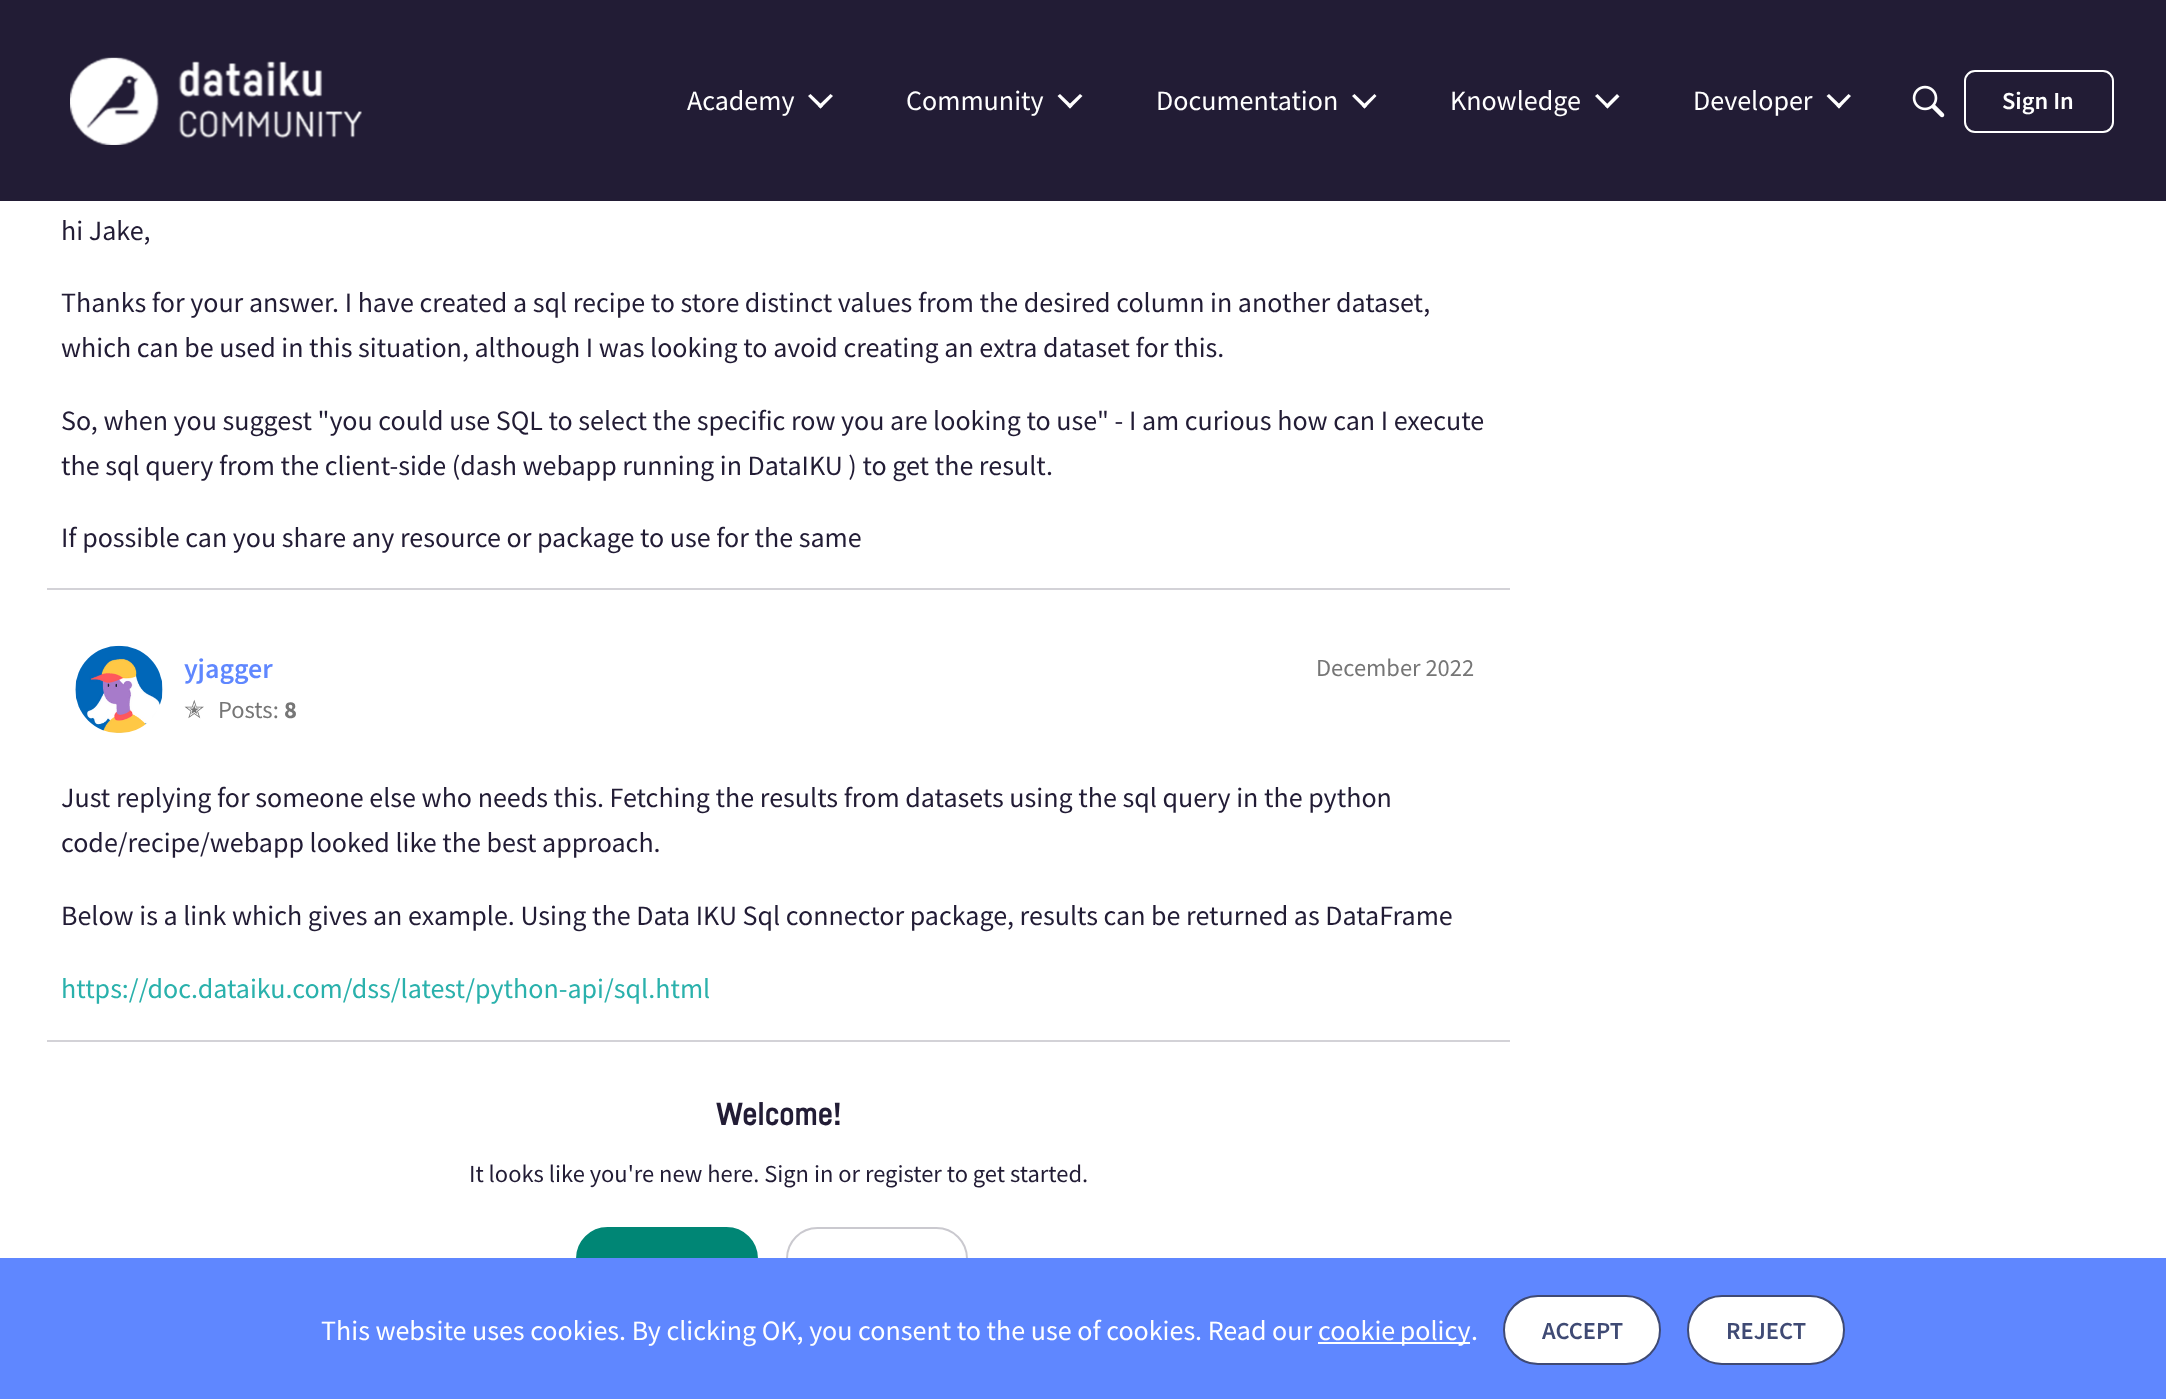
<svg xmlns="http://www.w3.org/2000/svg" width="2166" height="1399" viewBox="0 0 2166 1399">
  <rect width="100%" height="100%" fill="rgb(255,255,255)"/>
  <rect x="0" y="0" width="2166" height="201" fill="rgb(34,28,53)"/>
  <image x="70" y="57" width="292" height="88" href="pic1.png"/>
  <text x="687" y="110" font-family="Source Sans Pro" font-size="28" fill="rgb(255,255,255)">Academy</text>
  <path d="M830.5 94L833 96L820.5 108.5L818 106Z" fill="rgb(255,255,255)"/>
  <path d="M810.5 94L823 106L820.5 108.5L808 96Z" fill="rgb(255,255,255)"/>
  <text x="906" y="110" font-family="Source Sans Pro" font-size="28" fill="rgb(255,255,255)">Community</text>
  <path d="M1080 94L1082.5 96L1070 108.5L1067.5 106Z" fill="rgb(255,255,255)"/>
  <path d="M1060 94L1072.5 106L1070 108.5L1057.5 96Z" fill="rgb(255,255,255)"/>
  <text x="1156" y="110" font-family="Source Sans Pro" font-size="28" fill="rgb(255,255,255)">Documentation</text>
  <path d="M1374.5 94L1376.5 96L1364.5 108.5L1362 106Z" fill="rgb(255,255,255)"/>
  <path d="M1354.5 94L1367 106L1364.5 108.5L1352 96Z" fill="rgb(255,255,255)"/>
  <text x="1450" y="110" font-family="Source Sans Pro" font-size="28" fill="rgb(255,255,255)">Knowledge</text>
  <path d="M1617 94L1619.5 96.5L1607.5 108.5L1605 106Z" fill="rgb(255,255,255)"/>
  <path d="M1597.5 94L1609.5 106L1607.5 108.5L1595 96Z" fill="rgb(255,255,255)"/>
  <text x="1693" y="110" font-family="Source Sans Pro" font-size="28" fill="rgb(255,255,255)">Developer</text>
  <path d="M1848.5 94L1851 96L1839 108.5L1836.5 106Z" fill="rgb(255,255,255)"/>
  <path d="M1829 94L1841.5 106L1839 108.5L1826.5 96Z" fill="rgb(255,255,255)"/>
  <image x="1912" y="85" width="33" height="33" href="pic2.png"/>
  <rect x="1965" y="71" width="148" height="61" rx="10" fill="none" stroke="rgb(255,255,255)" stroke-width="2"/>
  <text x="2002" y="109" font-family="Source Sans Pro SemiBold" font-size="24.5" font-weight="600" fill="rgb(255,255,255)">Sign In</text>
  <g font-family="Source Sans Pro" font-size="28" fill="rgb(34,28,53)">
    <text x="61" y="240">hi Jake,</text>
    <text>
      <tspan x="61" y="312">Thanks for your answer. I have created a sql recipe to store distinct values from the desired column in another dataset,</tspan>
      <tspan x="61" y="357">which can be used in this situation, although I was looking to avoid creating an extra dataset for this.</tspan>
    </text>
    <text>
      <tspan x="61" y="430">So, when you suggest "you could use SQL to select the specific row you are looking to use" - I am curious how can I execute</tspan>
      <tspan x="61" y="475">the sql query from the client-side (dash webapp running in DataIKU ) to get the result.</tspan>
    </text>
    <text x="61" y="547">If possible can you share any resource or package to use for the same</text>
  </g>
  <rect x="47" y="588" width="1463" height="2" fill="rgb(211,210,215)"/>
  <image x="75" y="645" width="88" height="88" href="pic3.png"/>
  <text x="184" y="678" font-family="Source Sans Pro SemiBold" font-size="28" font-weight="600" fill="rgb(95,135,255)">yjagger</text>
  <text x="184" y="718" font-family="DejaVu Sans" font-size="24.5" fill="rgb(118,118,118)">✭</text>
  <text x="218" y="718" font-family="Source Sans Pro" font-size="24.5" fill="rgb(118,118,118)">Posts:</text>
  <text x="284" y="718" font-family="Source Sans Pro" font-size="24.5" font-weight="bold" fill="rgb(118,118,118)">8</text>
  <text x="1316" y="676" font-family="Source Sans Pro" font-size="24.5" fill="rgb(118,118,118)">December 2022</text>
  <g font-family="Source Sans Pro" font-size="28" fill="rgb(34,28,53)">
    <text>
      <tspan x="61" y="807">Just replying for someone else who needs this. Fetching the results from datasets using the sql query in the python</tspan>
      <tspan x="61" y="852">code/recipe/webapp looked like the best approach.</tspan>
    </text>
    <text x="61" y="925">Below is a link which gives an example. Using the Data IKU Sql connector package, results can be returned as DataFrame</text>
  </g>
  <text x="61" y="998" font-family="Source Sans Pro" font-size="28" fill="rgb(42,177,172)">https://doc.dataiku.com/dss/latest/python-api/sql.html</text>
  <rect x="47" y="1040" width="1463" height="2" fill="rgb(211,210,215)"/>
  <text x="716" y="1125" font-family="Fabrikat" font-size="31.5" font-weight="bold" fill="rgb(34,28,53)">Welcome!</text>
  <text x="469" y="1182" font-family="Source Sans Pro" font-size="24.5" fill="rgb(34,28,53)">It looks like you're new here. Sign in or register to get started.</text>
  <rect x="577" y="1228" width="180" height="61" rx="30.5" fill="rgb(0,134,117)" stroke="rgb(0,134,117)" stroke-width="2"/>
  <rect x="787" y="1228" width="180" height="61" rx="30.5" fill="none" stroke="rgb(202,201,207)" stroke-width="2"/>
  <rect x="0" y="1258" width="2166" height="141" fill="rgb(95,135,255)"/>
  <text x="321" y="1340" font-family="Source Sans Pro" font-size="28" fill="rgb(255,255,255)">This website uses cookies. By clicking OK, you consent to the use of cookies. Read our</text>
  <rect x="1318" y="1342" width="152" height="2" fill="rgb(255,255,255)"/>
  <g font-family="Source Sans Pro" font-size="28" fill="rgb(255,255,255)">
    <text x="1318" y="1340" word-spacing="-1">cookie policy</text>
    <text x="1471" y="1340">.</text>
  </g>
  <rect x="1504" y="1296" width="156" height="68" rx="34" fill="rgb(255,255,255)" stroke="rgb(63,74,116)" stroke-width="2"/>
  <text x="1542" y="1339" font-family="Source Sans Pro SemiBold" font-size="24.5" font-weight="600" fill="rgb(63,74,116)">ACCEPT</text>
  <rect x="1688" y="1296" width="156" height="68" rx="34" fill="rgb(255,255,255)" stroke="rgb(63,74,116)" stroke-width="2"/>
  <text x="1726" y="1339" font-family="Source Sans Pro SemiBold" font-size="24.5" font-weight="600" fill="rgb(63,74,116)">REJECT</text>
</svg>
